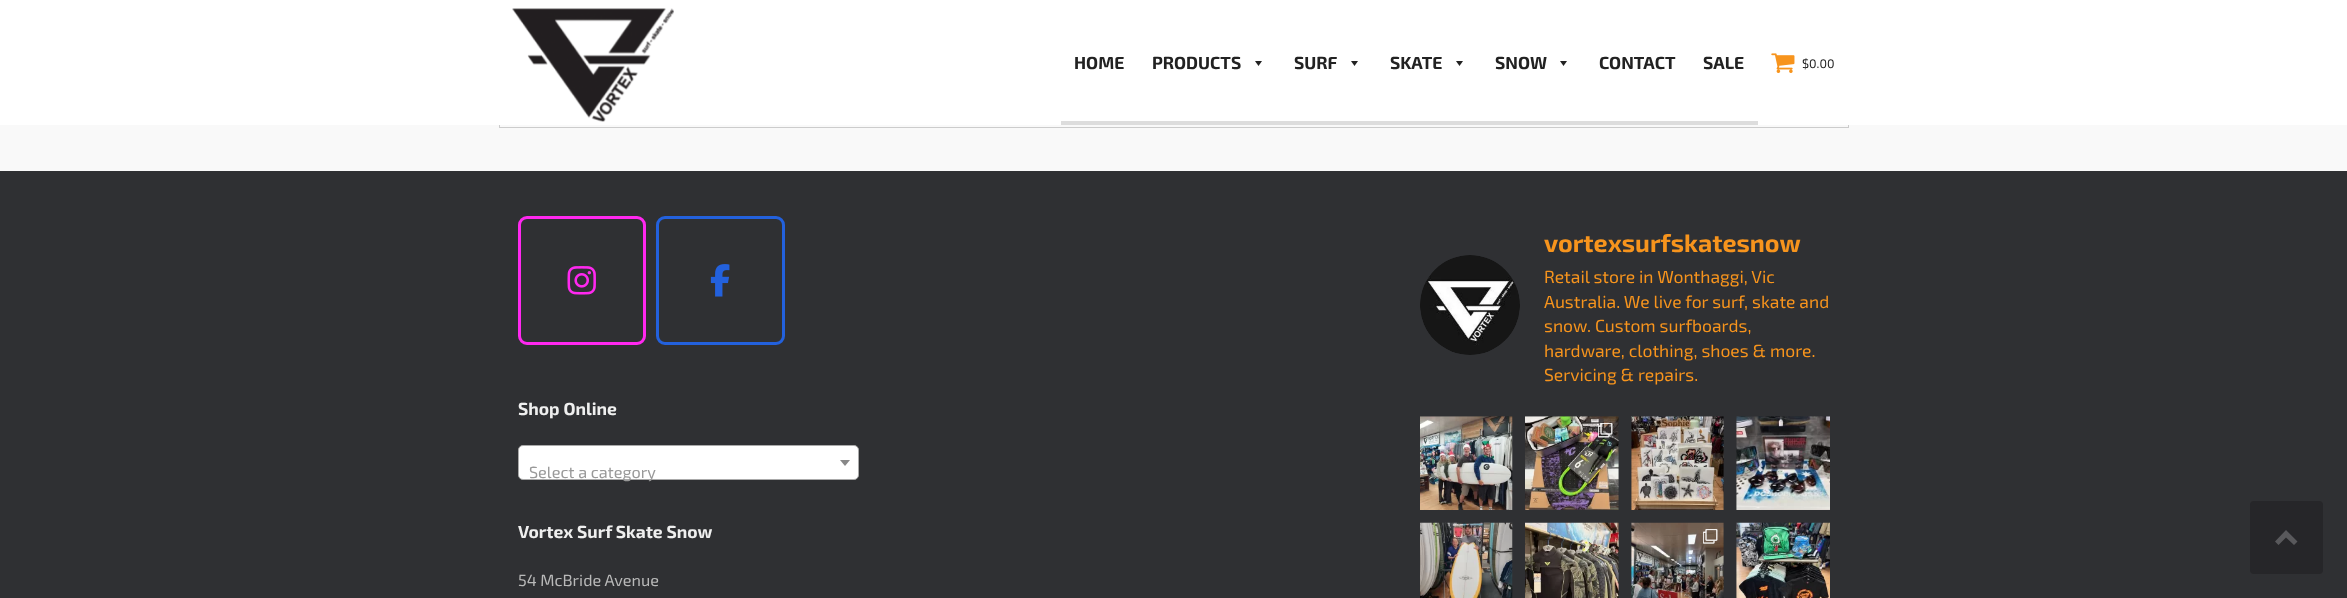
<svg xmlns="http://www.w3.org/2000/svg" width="2347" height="598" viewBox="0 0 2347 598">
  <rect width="100%" height="100%" fill="rgb(47,48,51)"/>
  <rect x="0" y="125" width="2347" height="46" fill="rgb(249,249,249)"/>
  <rect x="499.5" y="63.5" width="1349" height="64" fill="none" stroke="rgb(204,204,204)"/>
  <rect x="0" y="0" width="2347" height="125" fill="rgb(255,255,255)"/>
  <image x="512" y="8" width="162" height="114" href="pic1.png"/>
  <rect x="1061" y="121" width="697" height="4" fill="rgb(221,221,221)"/>
  <g font-family="'Exo 2'" font-size="17.5" font-weight="bold" fill="rgb(34,34,34)">
    <text x="1074" y="69">HOME</text>
    <text x="1152" y="69">PRODUCTS</text>
  </g>
  <path d="M1262 61L1258.5 66L1255 61Z" fill="rgb(34,34,34)"/>
  <text x="1294" y="69" font-family="'Exo 2'" font-size="17.5" font-weight="bold" fill="rgb(34,34,34)">SURF</text>
  <path d="M1358 61L1354.5 66L1351 61Z" fill="rgb(34,34,34)"/>
  <text x="1390" y="69" font-family="'Exo 2'" font-size="17.5" font-weight="bold" fill="rgb(34,34,34)">SKATE</text>
  <path d="M1463 61L1459.5 66L1456 61Z" fill="rgb(34,34,34)"/>
  <text x="1495" y="69" font-family="'Exo 2'" font-size="17.5" font-weight="bold" fill="rgb(34,34,34)">SNOW</text>
  <path d="M1567 61L1563.5 66L1560 61Z" fill="rgb(34,34,34)"/>
  <g font-family="'Exo 2'" font-size="17.5" font-weight="bold" fill="rgb(34,34,34)">
    <text x="1599" y="69">CONTACT</text>
    <text x="1703" y="69">SALE</text>
  </g>
  <image x="1771" y="53" width="24" height="20" href="pic2.png"/>
  <text x="1802" y="68" font-family="'Exo 2'" font-size="12.5" fill="rgb(34,34,34)">$0.00</text>
  <image x="1420" y="255" width="100" height="100" href="pic3.png"/>
  <text x="1544" y="252" font-family="'Exo 2'" font-size="25" font-weight="bold" fill="rgb(247,148,29)">vortexsurfskatesnow</text>
  <g font-family="'Exo 2'" font-size="17.5" fill="rgb(247,148,29)">
    <text>
      <tspan x="1544" y="283">Retail store in Wonthaggi, Vic</tspan>
      <tspan x="1544" y="308">Australia. We live for surf, skate and</tspan>
      <tspan x="1544" y="332">snow. Custom surfboards,</tspan>
      <tspan x="1544" y="357">hardware, clothing, shoes &amp; more.</tspan>
      <tspan x="1544" y="381">Servicing &amp; repairs.</tspan>
    </text>
  </g>
  <image x="1420" y="416" width="93" height="94" href="pic4.png"/>
  <image x="1525" y="416" width="94" height="94" href="pic5.png"/>
  <image x="1598" y="423" width="15" height="15" href="pic6.png"/>
  <image x="1631" y="416" width="93" height="94" href="pic7.png"/>
  <image x="1736" y="416" width="94" height="94" href="pic8.png"/>
  <image x="1420" y="522" width="93" height="76" href="pic9.png"/>
  <image x="1525" y="522" width="94" height="76" href="pic10.png"/>
  <image x="1631" y="522" width="93" height="76" href="pic11.png"/>
  <image x="1703" y="529" width="15" height="15" href="pic12.png"/>
  <image x="1736" y="522" width="94" height="76" href="pic13.png"/>
  <rect x="519.5" y="217.5" width="125" height="126" rx="7.5" fill="none" stroke="rgb(255,40,240)" stroke-width="3"/>
  <image x="567" y="266" width="29" height="29" href="pic14.png"/>
  <rect x="657.5" y="217.5" width="126" height="126" rx="7.5" fill="none" stroke="rgb(35,97,221)" stroke-width="3"/>
  <image x="710" y="264" width="20" height="33" href="pic15.png"/>
  <text x="518" y="415" font-family="'Exo 2'" font-size="17.5" font-weight="bold" fill="rgb(239,239,239)">Shop Online</text>
  <rect x="518.5" y="445.5" width="340" height="34" rx="4.5" fill="rgb(255,255,255)" stroke="rgb(170,170,170)"/>
  <path d="M840 460H850L845 466Z" fill="rgb(136,136,136)"/>
  <text x="529" y="478" font-family="'Exo 2'" font-size="16.25" fill="rgb(153,153,153)">Select a category</text>
  <text x="518" y="538" font-family="'Exo 2'" font-size="17.5" font-weight="bold" fill="rgb(239,239,239)">Vortex Surf Skate Snow</text>
  <text x="518" y="586" font-family="'Exo 2'" font-size="16.25" fill="rgb(185,185,185)">54 McBride Avenue</text>
  <rect x="2250" y="501" width="73" height="73" rx="4" fill="rgb(38,38,41)"/>
  <path d="M2297.5 541.5L2286 530L2275 541.5L2278.5 545L2286 537.5L2294 545Z" fill="rgb(89,89,92)"/>
</svg>
